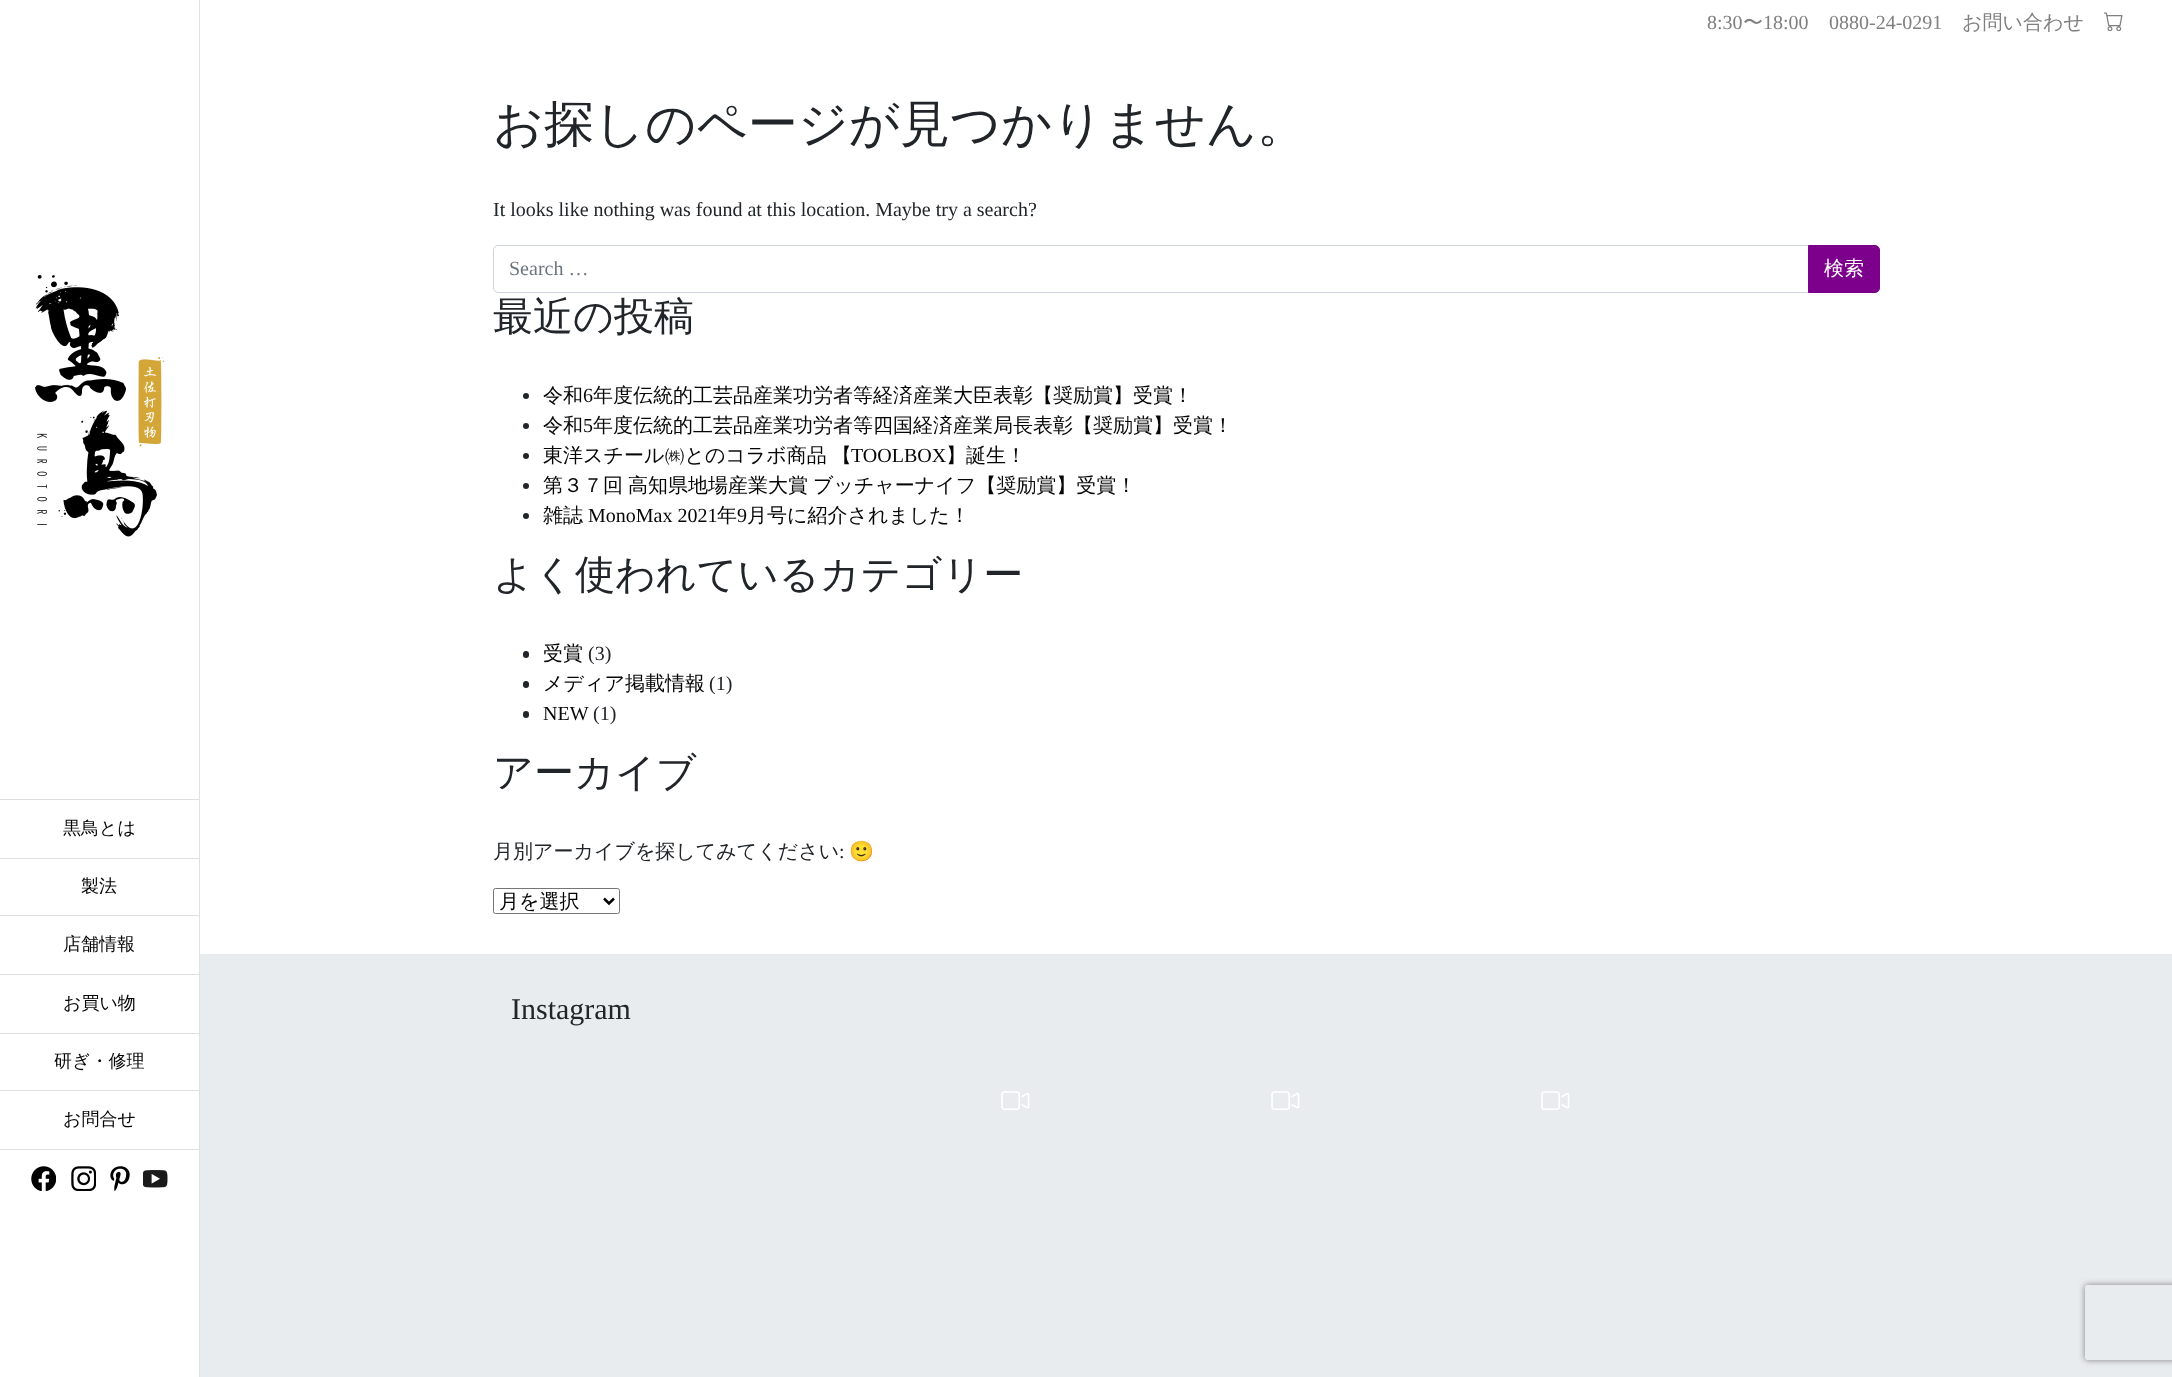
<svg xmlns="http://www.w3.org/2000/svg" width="2172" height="1377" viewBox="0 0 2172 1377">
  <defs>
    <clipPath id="clip1"><path d="M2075 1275H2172V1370H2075ZM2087.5 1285H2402.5C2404 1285 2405 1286 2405 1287.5V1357.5C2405 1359 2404 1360 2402.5 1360H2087.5C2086 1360 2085 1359 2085 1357.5V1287.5C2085 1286 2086 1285 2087.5 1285Z" clip-rule="evenodd"/></clipPath>
  </defs>
  <rect width="100%" height="100%" fill="rgb(255,255,255)"/>
  <rect x="199" y="0" width="1" height="1377" fill="rgb(222,226,230)"/>
  <image x="35" y="275" width="129" height="262" href="pic1.png"/>
  <rect x="0" y="799" width="199" height="1" fill="rgb(223,223,223)"/>
  <text x="63" y="834" font-family="WenQuanYi Zen Hei" font-size="18" font-weight="500" fill="rgb(6,6,6)">黒鳥とは</text>
  <rect x="0" y="858" width="199" height="1" fill="rgb(223,223,223)"/>
  <text x="81" y="892" font-family="WenQuanYi Zen Hei" font-size="18" font-weight="500" fill="rgb(6,6,6)">製法</text>
  <rect x="0" y="915" width="199" height="1" fill="rgb(223,223,223)"/>
  <text x="63" y="950" font-family="WenQuanYi Zen Hei" font-size="18" font-weight="500" fill="rgb(6,6,6)">店舗情報</text>
  <rect x="0" y="974" width="199" height="1" fill="rgb(223,223,223)"/>
  <text x="63" y="1009" font-family="WenQuanYi Zen Hei" font-size="18" font-weight="500" fill="rgb(6,6,6)">お買い物</text>
  <rect x="0" y="1033" width="199" height="1" fill="rgb(223,223,223)"/>
  <text x="54" y="1067" font-family="WenQuanYi Zen Hei" font-size="18" font-weight="500" fill="rgb(6,6,6)">研ぎ・修理</text>
  <rect x="0" y="1090" width="199" height="1" fill="rgb(223,223,223)"/>
  <text x="63" y="1125" font-family="WenQuanYi Zen Hei" font-size="18" font-weight="500" fill="rgb(6,6,6)">お問合せ</text>
  <rect x="0" y="1149" width="199" height="1" fill="rgb(223,223,223)"/>
  <image x="31" y="1166" width="25" height="25" href="pic2.png"/>
  <image x="71" y="1166" width="25" height="25" href="pic3.png"/>
  <image x="110" y="1166" width="20" height="25" href="pic4.png"/>
  <image x="143" y="1170" width="25" height="18" href="pic5.png"/>
  <text x="1707" y="29" font-family="Liberation Serif" font-size="20" fill="rgb(128,128,128)">8:30</text>
  <text x="1743" y="29" font-family="WenQuanYi Zen Hei" font-size="20" font-weight="500" fill="rgb(128,128,128)">〜</text>
  <g font-family="Liberation Serif" font-size="20" fill="rgb(128,128,128)">
    <text x="1763" y="29">18:00</text>
    <text x="1829" y="29">0880-24-0291</text>
  </g>
  <text x="1962" y="29" font-family="WenQuanYi Zen Hei" font-size="20" font-weight="500" fill="rgb(128,128,128)">お問い合わせ</text>
  <image x="2104" y="12" width="19" height="19" href="pic6.png"/>
  <text x="493" y="141" font-family="WenQuanYi Zen Hei" font-size="50" font-weight="500" fill="rgb(33,37,41)">お探しのページが見つかりません。</text>
  <text x="493" y="216" font-family="Liberation Serif" font-size="20" fill="rgb(33,37,41)">It looks like nothing was found at this location. Maybe try a search?</text>
  <path d="M498 245.5H1808.5V292.5H498C495.5 292.5 493.5 290.5 493.5 288V250C493.5 247.5 495.5 245.5 498 245.5Z" fill="none" stroke="rgb(206,212,218)"/>
  <text x="509" y="275" font-family="Liberation Serif" font-size="20" fill="rgb(108,117,125)">Search …</text>
  <path d="M1808.5 245.5H1875C1877.5 245.5 1879.5 247.5 1879.5 250V288C1879.5 290.5 1877.5 292.5 1875 292.5H1808.5Z" fill="rgb(124,0,140)" stroke="rgb(124,0,140)"/>
  <text x="1824" y="275" font-family="WenQuanYi Zen Hei" font-size="20" font-weight="500" fill="rgb(255,255,255)">検索</text>
  <text x="493" y="330" font-family="WenQuanYi Zen Hei" font-size="40" font-weight="500" fill="rgb(33,37,41)">最近の投稿</text>
  <circle cx="526" cy="396" r="3" fill="rgb(33,37,41)"/>
  <text x="543" y="402" font-family="WenQuanYi Zen Hei" font-size="20" font-weight="500" fill="rgb(6,6,6)">令和</text>
  <text x="583" y="402" font-family="Liberation Serif" font-size="20" fill="rgb(6,6,6)">6</text>
  <text x="593" y="402" font-family="WenQuanYi Zen Hei" font-size="20" font-weight="500" fill="rgb(6,6,6)">年度伝統的工芸品産業功労者等経済産業大臣表彰【奨励賞】受賞！</text>
  <circle cx="526" cy="426" r="3" fill="rgb(33,37,41)"/>
  <text x="543" y="432" font-family="WenQuanYi Zen Hei" font-size="20" font-weight="500" fill="rgb(6,6,6)">令和</text>
  <text x="583" y="432" font-family="Liberation Serif" font-size="20" fill="rgb(6,6,6)">5</text>
  <text x="593" y="432" font-family="WenQuanYi Zen Hei" font-size="20" font-weight="500" fill="rgb(6,6,6)">年度伝統的工芸品産業功労者等四国経済産業局長表彰【奨励賞】受賞！</text>
  <circle cx="526" cy="456" r="3" fill="rgb(33,37,41)"/>
  <text x="543" y="462" word-spacing="-1" font-family="WenQuanYi Zen Hei" font-size="20" font-weight="500" fill="rgb(6,6,6)">東洋スチール㈱とのコラボ商品 【</text>
  <text x="851" y="462" font-family="Liberation Serif" font-size="20" fill="rgb(6,6,6)">TOOLBOX</text>
  <text x="946" y="462" font-family="WenQuanYi Zen Hei" font-size="20" font-weight="500" fill="rgb(6,6,6)">】誕生！</text>
  <circle cx="526" cy="486" r="3" fill="rgb(33,37,41)"/>
  <text x="543" y="492" word-spacing="-1" font-family="WenQuanYi Zen Hei" font-size="20" font-weight="500" fill="rgb(6,6,6)">第３７回 高知県地場産業大賞 ブッチャーナイフ【奨励賞】受賞！</text>
  <circle cx="526" cy="516" r="3" fill="rgb(33,37,41)"/>
  <text x="543" y="522" font-family="WenQuanYi Zen Hei" font-size="20" font-weight="500" fill="rgb(6,6,6)">雑誌</text>
  <text x="588" y="522" font-family="Liberation Serif" font-size="20" fill="rgb(6,6,6)">MonoMax 2021</text>
  <text x="717" y="522" font-family="WenQuanYi Zen Hei" font-size="20" font-weight="500" fill="rgb(6,6,6)">年</text>
  <text x="737" y="522" font-family="Liberation Serif" font-size="20" fill="rgb(6,6,6)">9</text>
  <text x="747" y="522" font-family="WenQuanYi Zen Hei" font-size="20" font-weight="500" fill="rgb(6,6,6)">月号に紹介されました！</text>
  <text x="493" y="588" font-family="WenQuanYi Zen Hei" font-size="40" font-weight="500" fill="rgb(33,37,41)">よく使われているカテゴリー</text>
  <rect x="523" y="651" width="6" height="7" rx="3" fill="rgb(33,37,41)"/>
  <text x="543" y="660" font-family="WenQuanYi Zen Hei" font-size="20" font-weight="500" fill="rgb(6,6,6)">受賞</text>
  <text x="588" y="660" font-family="Liberation Serif" font-size="20" fill="rgb(33,37,41)">(3)</text>
  <rect x="523" y="681" width="6" height="7" rx="3" fill="rgb(33,37,41)"/>
  <text x="543" y="690" font-family="WenQuanYi Zen Hei" font-size="20" font-weight="500" fill="rgb(6,6,6)">メディア掲載情報</text>
  <text x="709" y="690" font-family="Liberation Serif" font-size="20" fill="rgb(33,37,41)">(1)</text>
  <rect x="523" y="711" width="6" height="7" rx="3" fill="rgb(33,37,41)"/>
  <text x="543" y="720" font-family="Liberation Serif" font-size="20" fill="rgb(6,6,6)">NEW</text>
  <text x="593" y="720" font-family="Liberation Serif" font-size="20" fill="rgb(33,37,41)">(1)</text>
  <text x="493" y="786" font-family="WenQuanYi Zen Hei" font-size="40" font-weight="500" fill="rgb(33,37,41)">アーカイブ</text>
  <text x="493" y="858" font-family="WenQuanYi Zen Hei" font-size="20" font-weight="500" fill="rgb(33,37,41)">月別アーカイブを探してみてください</text>
  <text x="839" y="858" font-family="Liberation Serif" font-size="20" fill="rgb(33,37,41)">:</text>
  <text x="849" y="858" font-family="Noto Color Emoji" font-size="20" fill="rgb(33,37,41)">🙂</text>
  <rect x="493.5" y="888.5" width="126" height="25" rx="2" fill="none" stroke="rgb(118,118,118)"/>
  <path d="M604 898.5L609 903.5L614 898.5" fill="none" stroke="rgb(0,0,0)" stroke-width="2.5"/>
  <text x="499" y="908" font-family="WenQuanYi Zen Hei" font-size="20" font-weight="500" fill="rgb(0,0,0)">月を選択</text>
  <rect x="200" y="954" width="1972" height="423" fill="rgb(233,236,239)"/>
  <text x="511" y="1019" font-family="Liberation Serif" font-size="30" fill="rgb(33,37,41)">Instagram</text>
  <image x="1001" y="1091" width="29" height="19" href="pic7.png"/>
  <image x="1271" y="1091" width="29" height="19" href="pic7.png"/>
  <image x="1541" y="1091" width="29" height="19" href="pic7.png"/>
  <g clip-path="url(#clip1)">
    <rect x="2085" y="1285" width="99" height="75" rx="2.5" fill="rgb(128,128,128)" filter="blur(3px)"/>
  </g>
</svg>
